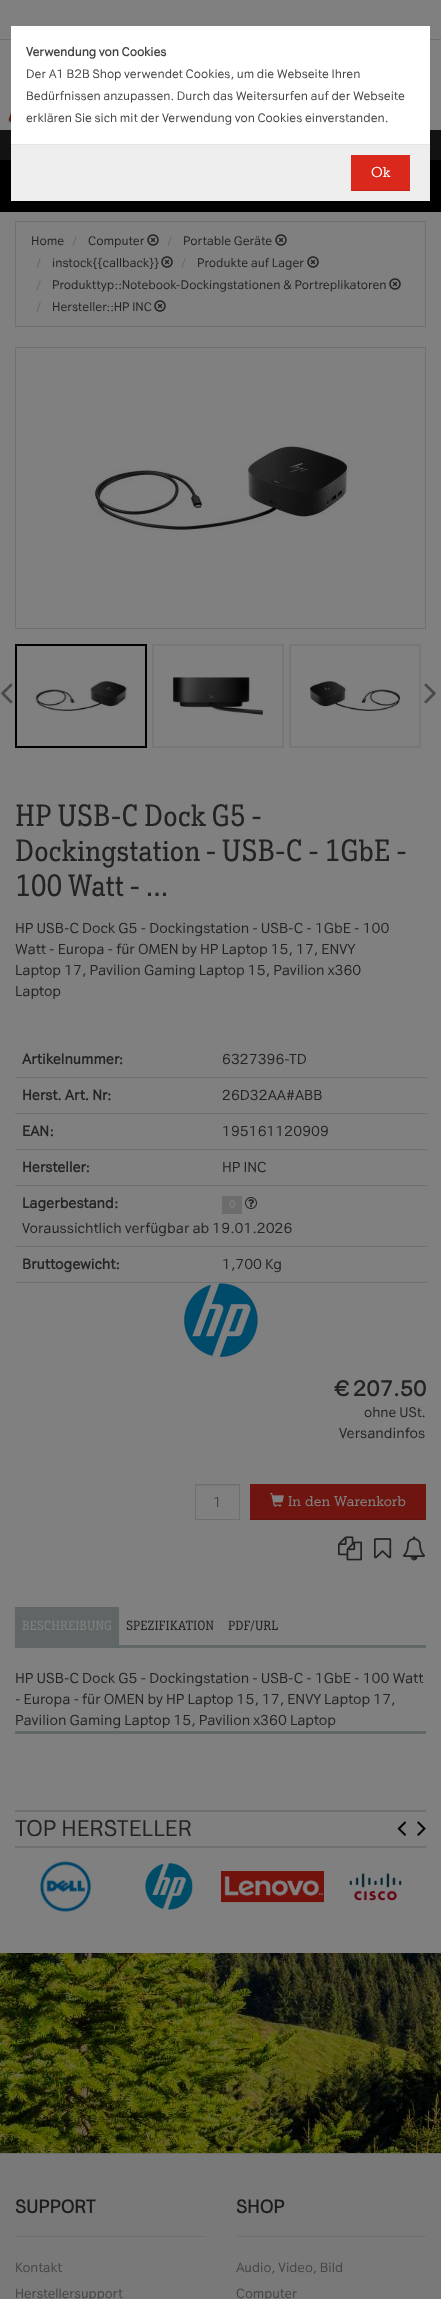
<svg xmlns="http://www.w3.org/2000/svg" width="441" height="2299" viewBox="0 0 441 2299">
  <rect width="100%" height="100%" fill="rgb(128,128,128)"/>
  <rect x="0" y="160" width="441" height="52" fill="rgb(0,0,0)"/>
  <rect x="0" y="130" width="441" height="30" fill="rgb(19,18,18)"/>
  <rect x="0" y="39" width="441" height="1" fill="rgb(111,111,111)"/>
  <image x="7" y="46" width="4" height="78" href="pic1.png"/>
  <rect x="11" y="26" width="419" height="118" fill="rgb(255,255,255)"/>
  <text x="26" y="56" font-family="'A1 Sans'" font-size="11.9" font-weight="bold" fill="rgb(68,68,68)">Verwendung von Cookies</text>
  <g font-family="'A1 Sans'" font-size="11.9" fill="rgb(68,68,68)">
    <text>
      <tspan x="26" y="78">Der A1 B2B Shop verwendet Cookies, um die Webseite Ihren</tspan>
      <tspan x="26" y="100">Bedürfnissen anzupassen. Durch das Weitersurfen auf der Webseite</tspan>
      <tspan x="26" y="122">erklären Sie sich mit der Verwendung von Cookies einverstanden.</tspan>
    </text>
  </g>
  <rect x="11" y="145" width="419" height="56" fill="rgb(238,238,238)"/>
  <rect x="11" y="144" width="419" height="1" fill="rgb(229,229,229)"/>
  <rect x="351" y="155" width="59" height="35" fill="rgb(218,41,28)"/>
  <rect x="351" y="190" width="59" height="1" fill="rgb(196,37,25)"/>
  <text x="371" y="177" font-family="'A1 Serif'" font-size="14" fill="rgb(255,255,255)">Ok</text>
  <rect x="15.5" y="221.5" width="410" height="105" fill="none" stroke="rgb(111,111,111)"/>
  <text x="31" y="245" font-family="'A1 Sans'" font-size="12" fill="rgb(35,35,35)">Home</text>
  <text x="72" y="245" font-family="'A1 Sans'" font-size="12" fill="rgb(102,102,102)">/</text>
  <text x="88" y="245" font-family="'A1 Sans'" font-size="12" fill="rgb(35,35,35)">Computer</text>
  <image x="147" y="234" width="12" height="12" href="pic2.png"/>
  <text x="167" y="245" font-family="'A1 Sans'" font-size="12" fill="rgb(102,102,102)">/</text>
  <text x="183" y="245" font-family="'A1 Sans'" font-size="12" fill="rgb(35,35,35)">Portable Geräte</text>
  <image x="275" y="234" width="12" height="12" href="pic2.png"/>
  <text x="36" y="267" font-family="'A1 Sans'" font-size="12" fill="rgb(102,102,102)">/</text>
  <text x="52" y="267" font-family="'A1 Sans'" font-size="12" fill="rgb(35,35,35)">instock{{callback}}</text>
  <image x="161" y="256" width="12" height="12" href="pic2.png"/>
  <text x="181" y="267" font-family="'A1 Sans'" font-size="12" fill="rgb(102,102,102)">/</text>
  <text x="197" y="267" font-family="'A1 Sans'" font-size="12" fill="rgb(35,35,35)">Produkte auf Lager</text>
  <image x="307" y="256" width="12" height="12" href="pic2.png"/>
  <text x="36" y="289" font-family="'A1 Sans'" font-size="12" fill="rgb(102,102,102)">/</text>
  <text x="52" y="289" font-family="'A1 Sans'" font-size="12" fill="rgb(35,35,35)">Produkttyp::Notebook-Dockingstationen &amp; Portreplikatoren</text>
  <image x="389" y="278" width="12" height="12" href="pic2.png"/>
  <text x="36" y="311" font-family="'A1 Sans'" font-size="12" fill="rgb(102,102,102)">/</text>
  <text x="52" y="311" font-family="'A1 Sans'" font-size="12" fill="rgb(35,35,35)">Hersteller::HP INC</text>
  <image x="154" y="300" width="12" height="12" href="pic2.png"/>
  <rect x="15.5" y="347.5" width="410" height="281" fill="none" stroke="rgb(111,111,111)"/>
  <image x="89" y="444" width="264" height="88" href="pic3.png"/>
  <rect x="16" y="645" width="130" height="102" fill="none" stroke="rgb(0,0,0)" stroke-width="2"/>
  <image x="35" y="681" width="93" height="30" href="pic4.png"/>
  <rect x="153" y="645" width="130" height="102" fill="none" stroke="rgb(119,119,119)" stroke-width="2"/>
  <image x="172" y="677" width="92" height="38" href="pic5.png"/>
  <rect x="290" y="645" width="130" height="102" fill="none" stroke="rgb(119,119,119)" stroke-width="2"/>
  <image x="310" y="681" width="91" height="30" href="pic6.png"/>
  <image x="1" y="683" width="12" height="21" href="pic7.png"/>
  <image x="424" y="683" width="12" height="21" href="pic8.png"/>
  <g font-family="'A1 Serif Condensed'" font-size="30" fill="rgb(35,35,35)">
    <text>
      <tspan x="15" y="826">HP USB-C Dock G5 -</tspan>
      <tspan x="15" y="861">Dockingstation - USB-C - 1GbE -</tspan>
      <tspan x="15" y="896">100 Watt - ...</tspan>
    </text>
  </g>
  <g font-family="'A1 Sans'" font-size="14" fill="rgb(35,35,35)">
    <text>
      <tspan x="15" y="933">HP USB-C Dock G5 - Dockingstation - USB-C - 1GbE - 100</tspan>
      <tspan x="15" y="954">Watt - Europa - für OMEN by HP Laptop 15, 17, ENVY</tspan>
      <tspan x="15" y="975">Laptop 17, Pavilion Gaming Laptop 15, Pavilion x360</tspan>
      <tspan x="15" y="996">Laptop</tspan>
    </text>
  </g>
  <rect x="15" y="1077" width="412" height="1" fill="rgb(111,111,111)"/>
  <text x="22" y="1064" font-family="'A1 Sans'" font-size="14" font-weight="bold" fill="rgb(35,35,35)">Artikelnummer:</text>
  <text x="222" y="1064" font-family="'A1 Sans'" font-size="14" fill="rgb(35,35,35)">6327396-TD</text>
  <rect x="15" y="1113" width="412" height="1" fill="rgb(111,111,111)"/>
  <text x="22" y="1100" font-family="'A1 Sans'" font-size="14" font-weight="bold" fill="rgb(35,35,35)">Herst. Art. Nr:</text>
  <text x="222" y="1100" font-family="'A1 Sans'" font-size="14" fill="rgb(35,35,35)">26D32AA#ABB</text>
  <rect x="15" y="1149" width="412" height="1" fill="rgb(111,111,111)"/>
  <text x="22" y="1136" font-family="'A1 Sans'" font-size="14" font-weight="bold" fill="rgb(35,35,35)">EAN:</text>
  <text x="222" y="1136" font-family="'A1 Sans'" font-size="14" fill="rgb(35,35,35)">195161120909</text>
  <rect x="15" y="1185" width="412" height="1" fill="rgb(111,111,111)"/>
  <text x="22" y="1172" font-family="'A1 Sans'" font-size="14" font-weight="bold" fill="rgb(35,35,35)">Hersteller:</text>
  <text x="222" y="1172" font-family="'A1 Sans'" font-size="14" fill="rgb(35,35,35)">HP INC</text>
  <text x="22" y="1208" font-family="'A1 Sans'" font-size="14" font-weight="bold" fill="rgb(35,35,35)">Lagerbestand:</text>
  <rect x="222" y="1196" width="20" height="18" fill="rgb(108,108,108)"/>
  <text x="229" y="1208" font-family="'A1 Sans'" font-size="10" font-weight="bold" fill="rgb(128,128,128)">0</text>
  <image x="245" y="1197" width="12" height="12" href="pic9.png"/>
  <rect x="15" y="1246" width="412" height="1" fill="rgb(111,111,111)"/>
  <text x="22" y="1233" font-family="'A1 Sans'" font-size="14" fill="rgb(35,35,35)">Voraussichtlich verfügbar ab 19.01.2026</text>
  <rect x="15" y="1282" width="412" height="1" fill="rgb(111,111,111)"/>
  <text x="22" y="1269" font-family="'A1 Sans'" font-size="14" font-weight="bold" fill="rgb(35,35,35)">Bruttogewicht:</text>
  <text x="222" y="1269" font-family="'A1 Sans'" font-size="14" fill="rgb(35,35,35)">1,700 Kg</text>
  <image x="183" y="1283" width="75" height="75" href="pic10.png"/>
  <text x="335" y="1396" font-family="'A1 Sans'" font-size="21" font-weight="bold" fill="rgb(35,35,35)">€ 207.50</text>
  <text x="364" y="1417" font-family="'A1 Sans'" font-size="13.5" fill="rgb(35,35,35)">ohne USt.</text>
  <text x="339" y="1438" font-family="'A1 Sans'" font-size="14" fill="rgb(35,35,35)">Versandinfos</text>
  <rect x="196" y="1485" width="43" height="1" fill="rgb(118,118,118)"/>
  <rect x="195.5" y="1484.5" width="44" height="35" fill="none" stroke="rgb(111,111,111)"/>
  <text x="213" y="1507" font-family="'A1 Sans'" font-size="14" fill="rgb(68,68,68)">1</text>
  <rect x="250" y="1484" width="176" height="35" fill="rgb(109,21,14)"/>
  <rect x="250" y="1519" width="176" height="1" fill="rgb(98,19,13)"/>
  <image x="270" y="1493" width="14" height="14" href="pic11.png"/>
  <text x="288" y="1506" font-family="'A1 Serif'" font-size="14" fill="rgb(128,128,128)">In den Warenkorb</text>
  <image x="338" y="1536" width="24" height="25" href="pic12.png"/>
  <image x="374" y="1538" width="18" height="21" href="pic13.png"/>
  <image x="402" y="1536" width="24" height="25" href="pic14.png"/>
  <rect x="15" y="1645" width="411" height="3" fill="rgb(96,101,101)"/>
  <rect x="15" y="1607" width="104" height="38" fill="rgb(96,101,101)"/>
  <text x="22" y="1630" font-family="'A1 Serif Condensed'" font-size="13" fill="rgb(128,128,128)">BESCHREIBUNG</text>
  <g font-family="'A1 Serif Condensed'" font-size="13" fill="rgb(35,35,35)">
    <text x="126" y="1630">SPEZIFIKATION</text>
    <text x="228" y="1630">PDF/URL</text>
  </g>
  <g font-family="'A1 Sans'" font-size="14" fill="rgb(35,35,35)">
    <text>
      <tspan x="15" y="1683">HP USB-C Dock G5 - Dockingstation - USB-C - 1GbE - 100 Watt</tspan>
      <tspan x="15" y="1704">- Europa - für OMEN by HP Laptop 15, 17, ENVY Laptop 17,</tspan>
      <tspan x="15" y="1725">Pavilion Gaming Laptop 15, Pavilion x360 Laptop</tspan>
    </text>
  </g>
  <rect x="15" y="1731" width="411" height="3" fill="rgb(96,101,101)"/>
  <rect x="15" y="1810" width="411" height="2" fill="rgb(111,111,111)"/>
  <rect x="15" y="1846" width="411" height="2" fill="rgb(111,111,111)"/>
  <text x="15" y="1836" font-family="'A1 Sans'" font-size="22" fill="rgb(35,35,35)">TOP HERSTELLER</text>
  <image x="397" y="1821" width="10" height="15" href="pic15.png"/>
  <image x="417" y="1821" width="9" height="15" href="pic16.png"/>
  <image x="40" y="1861" width="52" height="51" href="pic17.png"/>
  <image x="145" y="1863" width="48" height="47" href="pic18.png"/>
  <image x="221" y="1871" width="103" height="32" href="pic19.png"/>
  <image x="349" y="1873" width="53" height="28" href="pic20.png"/>
  <image x="0" y="1953" width="441" height="200" href="pic21.png"/>
  <rect x="0" y="2154" width="441" height="145" fill="rgb(121,121,121)"/>
  <rect x="0" y="2153" width="441" height="1" fill="rgb(111,111,111)"/>
  <rect x="15" y="2236" width="191" height="1" fill="rgb(111,111,111)"/>
  <text x="15" y="2213" font-family="'A1 Sans'" font-size="18" font-weight="bold" fill="rgb(29,29,29)">SUPPORT</text>
  <g font-family="'A1 Sans'" font-size="13" fill="rgb(68,68,68)">
    <text x="15" y="2272">Kontakt</text>
    <text x="15" y="2298">Herstellersupport</text>
  </g>
  <rect x="236" y="2236" width="190" height="1" fill="rgb(111,111,111)"/>
  <text x="236" y="2213" font-family="'A1 Sans'" font-size="18" font-weight="bold" fill="rgb(29,29,29)">SHOP</text>
  <g font-family="'A1 Sans'" font-size="13" fill="rgb(68,68,68)">
    <text x="236" y="2272">Audio, Video, Bild</text>
    <text x="236" y="2298">Computer</text>
  </g>
</svg>
